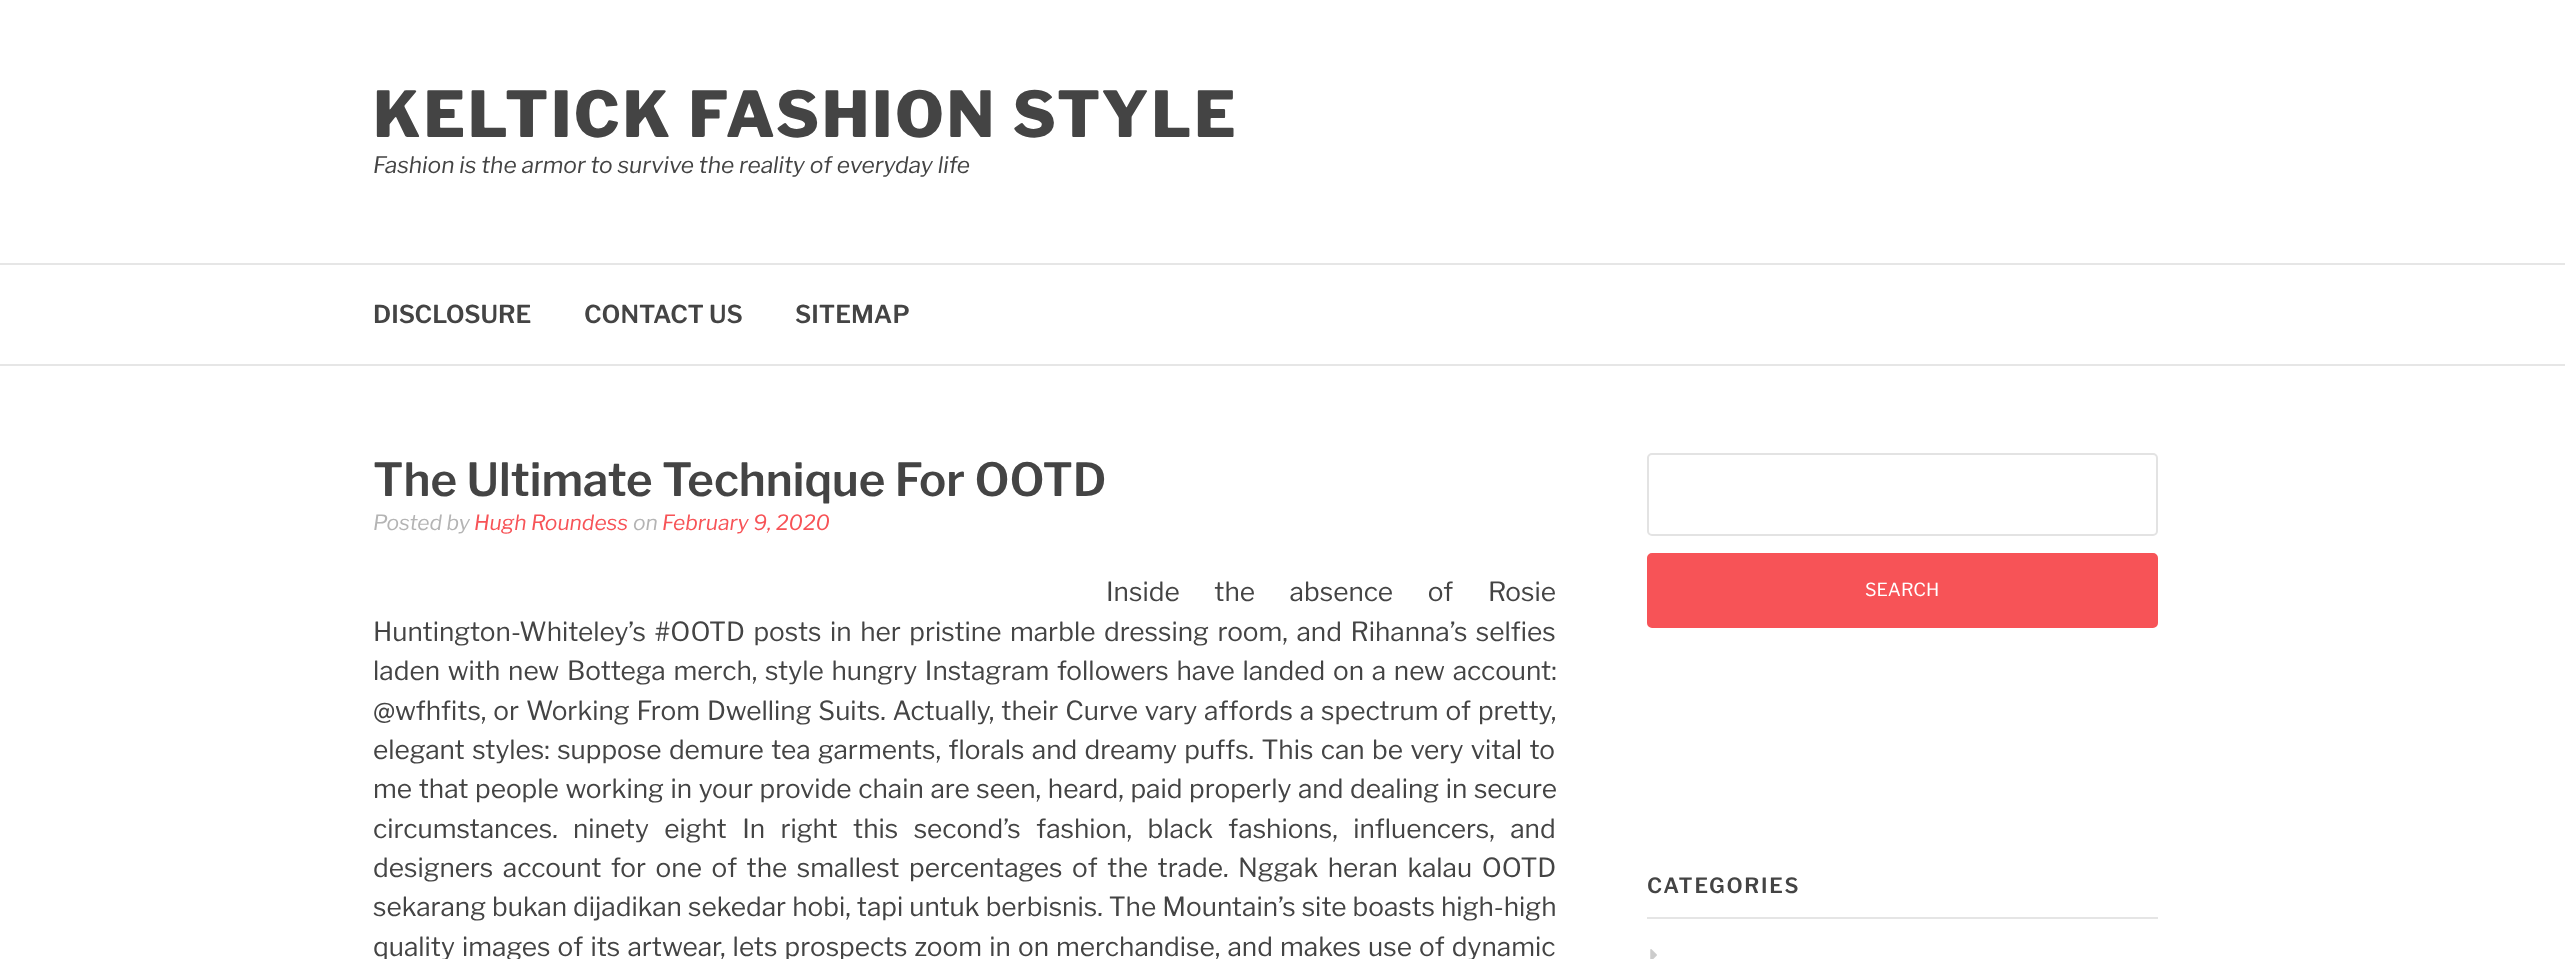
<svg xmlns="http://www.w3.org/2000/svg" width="2565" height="959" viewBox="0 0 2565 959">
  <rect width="100%" height="100%" fill="rgb(255,255,255)"/>
  <text x="373" y="137" font-family="Libre Franklin" font-size="63" font-weight="800" letter-spacing="2.6" fill="rgb(68,68,68)">KELTICK FASHION STYLE</text>
  <text x="373" y="173" font-family="Libre Franklin" font-size="22.75" font-style="italic" fill="rgb(68,68,68)">Fashion is the armor to survive the reality of everyday life</text>
  <rect x="0" y="263" width="2565" height="2" fill="rgb(230,230,230)"/>
  <rect x="0" y="364" width="2565" height="2" fill="rgb(230,230,230)"/>
  <g font-family="Libre Franklin" font-size="24.5" font-weight="600" fill="rgb(68,68,68)">
    <text x="373" y="323">DISCLOSURE</text>
    <text x="584" y="323">CONTACT US</text>
    <text x="795" y="323">SITEMAP</text>
  </g>
  <text x="373" y="496" font-family="Libre Franklin" font-size="45.5" font-weight="600" fill="rgb(68,68,68)">The Ultimate Technique For OOTD</text>
  <text x="373" y="530" font-family="Libre Franklin" font-size="21" font-style="italic" fill="rgb(180,180,180)">Posted by</text>
  <text x="474" y="530" font-family="Libre Franklin" font-size="21" font-style="italic" fill="rgb(247,83,87)">Hugh Roundess</text>
  <text x="633" y="530" font-family="Libre Franklin" font-size="21" font-style="italic" fill="rgb(180,180,180)">on</text>
  <text x="662" y="530" font-family="Libre Franklin" font-size="21" font-style="italic" fill="rgb(247,83,87)">February 9, 2020</text>
  <g font-family="Libre Franklin" font-size="26.25" fill="rgb(68,68,68)">
    <text x="1106" y="601" word-spacing="29">Inside the absence of Rosie</text>
    <text>
      <tspan x="373" y="641" word-spacing="2.9">Huntington-Whiteley’s #OOTD posts in her pristine marble dressing room, and Rihanna’s selfies</tspan>
      <tspan x="373" y="680" word-spacing="2.1">laden with new Bottega merch, style hungry Instagram followers have landed on a new account:</tspan>
      <tspan x="373" y="720" word-spacing="1.25">@wfhfits, or Working From Dwelling Suits. Actually, their Curve vary affords a spectrum of pretty,</tspan>
      <tspan x="373" y="759" word-spacing="1.75">elegant styles: suppose demure tea garments, florals and dreamy puffs. This can be very vital to</tspan>
      <tspan x="373" y="798" word-spacing="1">me that people working in your provide chain are seen, heard, paid properly and dealing in secure</tspan>
      <tspan x="373" y="838" word-spacing="9.75">circumstances. ninety eight In right this second’s fashion, black fashions, influencers, and</tspan>
      <tspan x="373" y="877" word-spacing="3.9">designers account for one of the smallest percentages of the trade. Nggak heran kalau OOTD</tspan>
      <tspan x="373" y="916" word-spacing="0.4">sekarang bukan dijadikan sekedar hobi, tapi untuk berbisnis. The Mountain’s site boasts high-high</tspan>
      <tspan x="373" y="956" word-spacing="1.5">quality images of its artwear, lets prospects zoom in on merchandise, and makes use of dynamic</tspan>
    </text>
  </g>
  <rect x="1648" y="454" width="509" height="81" rx="4" fill="none" stroke="rgb(227,227,227)" stroke-width="2"/>
  <rect x="1648" y="554" width="509" height="73" rx="4" fill="rgb(247,83,87)" stroke="rgb(247,83,87)" stroke-width="2"/>
  <text x="1865" y="596" font-family="Libre Franklin" font-size="18" fill="rgb(255,255,255)">SEARCH</text>
  <rect x="1647" y="917" width="511" height="2" fill="rgb(229,229,229)"/>
  <text x="1647" y="893" font-family="Libre Franklin" font-size="21" font-weight="600" letter-spacing="1.75" fill="rgb(68,68,68)">CATEGORIES</text>
  <image x="1650" y="949" width="7" height="10" href="pic1.png"/>
</svg>
